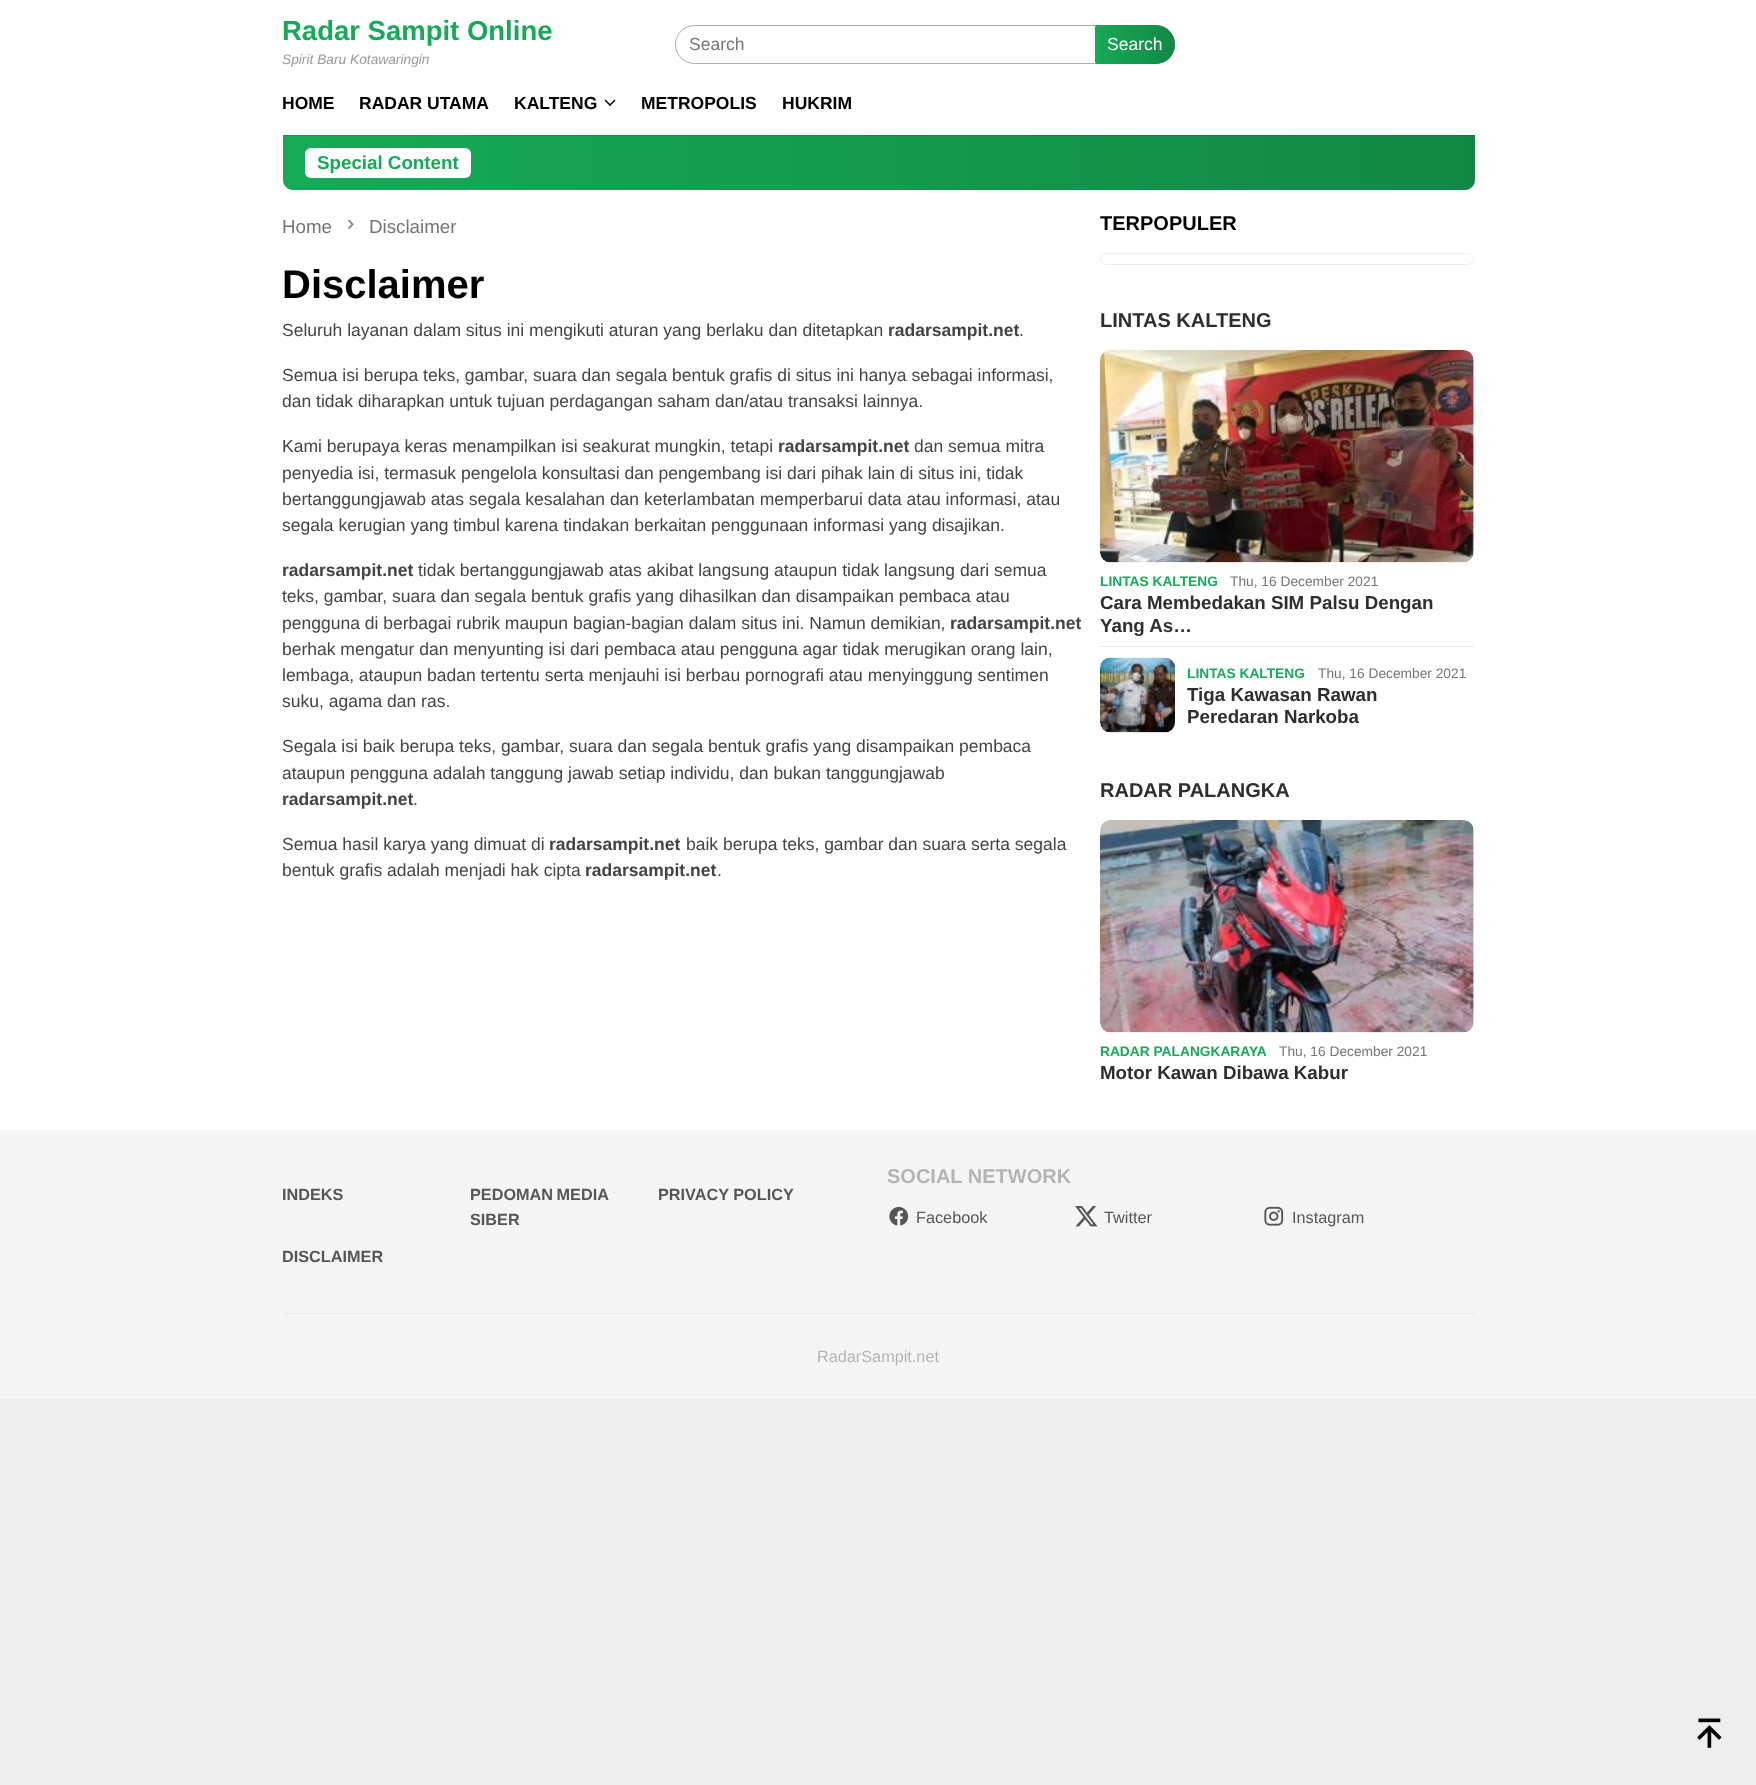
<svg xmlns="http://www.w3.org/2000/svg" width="1756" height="1785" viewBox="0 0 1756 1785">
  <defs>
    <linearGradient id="g1" gradientUnits="userSpaceOnUse" x1="1095" y1="44" x2="1175" y2="44"><stop offset="0" stop-color="rgb(0,0,0)" stop-opacity="0"/><stop offset="1" stop-color="rgb(0,0,0)" stop-opacity="0.2"/></linearGradient>
    <linearGradient id="g2" gradientUnits="userSpaceOnUse" x1="283" y1="163" x2="1475" y2="162"><stop offset="0" stop-color="rgb(0,0,0)" stop-opacity="0"/><stop offset="1" stop-color="rgb(0,0,0)" stop-opacity="0.2"/></linearGradient>
  </defs>
  <rect width="100%" height="100%" fill="rgb(238,238,238)"/>
  <rect x="0" y="0" width="1756" height="71" fill="rgb(255,255,255)"/>
  <text x="282" y="40" font-family="Liberation Sans" font-size="27.5" font-weight="bold" fill="rgb(22,170,86)">Radar Sampit Online</text>
  <text x="282" y="64" font-family="Liberation Sans" font-size="13.75" font-style="italic" fill="rgb(153,153,153)">Spirit Baru Kotawaringin</text>
  <rect x="675.5" y="25.5" width="499" height="38" rx="19" fill="none" stroke="rgb(173,173,173)"/>
  <text x="689" y="50" font-family="Liberation Sans" font-size="17.5" fill="rgb(117,117,117)">Search</text>
  <path d="M1097.5 25H1155.5C1166.5 25 1175 33.5 1175 44.5C1175 55.5 1166.5 64 1155.5 64H1097.5C1096 64 1095 63 1095 61.5V27.5C1095 26 1096 25 1097.5 25Z" fill="rgb(22,170,86)"/>
  <path d="M1097.5 25H1155.5C1166.5 25 1175 33.5 1175 44.5C1175 55.5 1166.5 64 1155.5 64H1097.5C1096 64 1095 63 1095 61.5V27.5C1095 26 1096 25 1097.5 25Z" fill="url(#g1)"/>
  <text x="1107" y="50" font-family="Liberation Sans" font-size="17.5" fill="rgb(255,255,255)">Search</text>
  <rect x="0" y="71" width="1756" height="1059" fill="rgb(255,255,255)"/>
  <path d="M283 135H1475V180C1475 185.5 1470.5 190 1465 190H293C287.5 190 283 185.5 283 180Z" fill="rgb(22,170,86)"/>
  <path d="M283 135H1475V180C1475 185.5 1470.5 190 1465 190H293C287.5 190 283 185.5 283 180Z" fill="url(#g2)"/>
  <rect x="283" y="135" width="1192" height="1" fill="rgba(0,0,0,0.1)"/>
  <g font-family="Liberation Sans" font-size="17.5" font-weight="bold" fill="rgb(0,0,0)">
    <text x="282" y="109">HOME</text>
    <text x="359" y="109">RADAR UTAMA</text>
    <text x="514" y="109">KALTENG</text>
  </g>
  <path d="M614.5 99.5L615.5 100.5L610 106L609 105Z" fill="rgb(0,0,0)"/>
  <path d="M605.5 99.5L611 105L610 106L604.5 100.5Z" fill="rgb(0,0,0)"/>
  <g font-family="Liberation Sans" font-size="17.5" font-weight="bold" fill="rgb(0,0,0)">
    <text x="641" y="109">METROPOLIS</text>
    <text x="782" y="109">HUKRIM</text>
  </g>
  <rect x="305" y="148" width="166" height="30" rx="6" fill="rgb(255,255,255)"/>
  <text x="317" y="169" font-family="Liberation Sans" font-size="18.75" font-weight="bold" fill="rgb(22,170,86)">Special Content</text>
  <text x="282" y="233" font-family="Liberation Sans" font-size="18.75" fill="rgb(117,117,117)">Home</text>
  <image x="348" y="219" width="6" height="10" href="pic1.png"/>
  <text x="369" y="233" font-family="Liberation Sans" font-size="18.75" fill="rgb(117,117,117)">Disclaimer</text>
  <text x="282" y="298" font-family="Liberation Sans" font-size="40" font-weight="bold" fill="rgb(0,0,0)">Disclaimer</text>
  <text x="282" y="336" font-family="Liberation Sans" font-size="17.5" fill="rgb(68,68,68)">Seluruh layanan dalam situs ini mengikuti aturan yang berlaku dan ditetapkan</text>
  <text x="888" y="336" font-family="Liberation Sans" font-size="17.5" font-weight="bold" fill="rgb(68,68,68)">radarsampit.net</text>
  <g font-family="Liberation Sans" font-size="17.5" fill="rgb(68,68,68)">
    <text x="1019" y="336">.</text>
    <text>
      <tspan x="282" y="381">Semua isi berupa teks, gambar, suara dan segala bentuk grafis di situs ini hanya sebagai informasi,</tspan>
      <tspan x="282" y="407">dan tidak diharapkan untuk tujuan perdagangan saham dan/atau transaksi lainnya.</tspan>
    </text>
    <text x="282" y="452">Kami berupaya keras menampilkan isi seakurat mungkin, tetapi</text>
  </g>
  <text x="778" y="452" font-family="Liberation Sans" font-size="17.5" font-weight="bold" fill="rgb(68,68,68)">radarsampit.net</text>
  <g font-family="Liberation Sans" font-size="17.5" fill="rgb(68,68,68)">
    <text x="914" y="452">dan semua mitra</text>
    <text>
      <tspan x="282" y="479">penyedia isi, termasuk pengelola konsultasi dan pengembang isi dari pihak lain di situs ini, tidak</tspan>
      <tspan x="282" y="505">bertanggungjawab atas segala kesalahan dan keterlambatan memperbarui data atau informasi, atau</tspan>
      <tspan x="282" y="531">segala kerugian yang timbul karena tindakan berkaitan penggunaan informasi yang disajikan.</tspan>
    </text>
  </g>
  <text x="282" y="576" font-family="Liberation Sans" font-size="17.5" font-weight="bold" fill="rgb(68,68,68)">radarsampit.net</text>
  <g font-family="Liberation Sans" font-size="17.5" fill="rgb(68,68,68)">
    <text x="418" y="576">tidak bertanggungjawab atas akibat langsung ataupun tidak langsung dari semua</text>
    <text>
      <tspan x="282" y="602">teks, gambar, suara dan segala bentuk grafis yang dihasilkan dan disampaikan pembaca atau</tspan>
      <tspan x="282" y="629">pengguna di berbagai rubrik maupun bagian-bagian dalam situs ini. Namun demikian,</tspan>
    </text>
  </g>
  <text x="950" y="629" font-family="Liberation Sans" font-size="17.5" font-weight="bold" fill="rgb(68,68,68)">radarsampit.net</text>
  <g font-family="Liberation Sans" font-size="17.5" fill="rgb(68,68,68)">
    <text>
      <tspan x="282" y="655">berhak mengatur dan menyunting isi dari pembaca atau pengguna agar tidak merugikan orang lain,</tspan>
      <tspan x="282" y="681">lembaga, ataupun badan tertentu serta menjauhi isi berbau pornografi atau menyinggung sentimen</tspan>
      <tspan x="282" y="707">suku, agama dan ras.</tspan>
    </text>
    <text>
      <tspan x="282" y="752">Segala isi baik berupa teks, gambar, suara dan segala bentuk grafis yang disampaikan pembaca</tspan>
      <tspan x="282" y="779">ataupun pengguna adalah tanggung jawab setiap individu, dan bukan tanggungjawab</tspan>
    </text>
  </g>
  <text x="282" y="805" font-family="Liberation Sans" font-size="17.5" font-weight="bold" fill="rgb(68,68,68)">radarsampit.net</text>
  <g font-family="Liberation Sans" font-size="17.5" fill="rgb(68,68,68)">
    <text x="413" y="805">.</text>
    <text x="282" y="850">Semua hasil karya yang dimuat di</text>
  </g>
  <text x="549" y="850" font-family="Liberation Sans" font-size="17.5" font-weight="bold" fill="rgb(68,68,68)">radarsampit.net</text>
  <g font-family="Liberation Sans" font-size="17.5" fill="rgb(68,68,68)">
    <text x="686" y="850">baik berupa teks, gambar dan suara serta segala</text>
    <text x="282" y="876">bentuk grafis adalah menjadi hak cipta</text>
  </g>
  <text x="585" y="876" font-family="Liberation Sans" font-size="17.5" font-weight="bold" fill="rgb(68,68,68)">radarsampit.net</text>
  <text x="717" y="876" font-family="Liberation Sans" font-size="17.5" fill="rgb(68,68,68)">.</text>
  <text x="1100" y="230" font-family="Liberation Sans" font-size="20" font-weight="bold" fill="rgb(0,0,0)">TERPOPULER</text>
  <rect x="1100.5" y="253.5" width="373" height="11" rx="5.5" fill="none" stroke="rgb(238,238,238)"/>
  <text x="1100" y="327" font-family="Liberation Sans" font-size="20" font-weight="bold" fill="rgb(46,46,46)">LINTAS KALTENG</text>
  <rect x="1100" y="646" width="374" height="1" fill="rgb(233,233,233)"/>
  <image x="1100" y="350" width="374" height="213" href="pic2.png"/>
  <text x="1100" y="586" font-family="Liberation Sans" font-size="13.75" font-weight="bold" fill="rgb(22,170,86)">LINTAS KALTENG</text>
  <text x="1230" y="586" font-family="Liberation Sans" font-size="13.75" fill="rgb(117,117,117)">Thu, 16 December 2021</text>
  <g font-family="Liberation Sans" font-size="18.75" font-weight="bold" fill="rgb(46,46,46)">
    <text>
      <tspan x="1100" y="609">Cara Membedakan SIM Palsu Dengan</tspan>
      <tspan x="1100" y="632">Yang As…</tspan>
    </text>
  </g>
  <image x="1100" y="657" width="75" height="76" href="pic3.png"/>
  <text x="1187" y="678" font-family="Liberation Sans" font-size="13.75" font-weight="bold" fill="rgb(22,170,86)">LINTAS KALTENG</text>
  <text x="1318" y="678" font-family="Liberation Sans" font-size="13.75" fill="rgb(117,117,117)">Thu, 16 December 2021</text>
  <g font-family="Liberation Sans" font-size="18.75" font-weight="bold" fill="rgb(46,46,46)">
    <text>
      <tspan x="1187" y="701">Tiga Kawasan Rawan</tspan>
      <tspan x="1187" y="723">Peredaran Narkoba</tspan>
    </text>
  </g>
  <text x="1100" y="797" font-family="Liberation Sans" font-size="20" font-weight="bold" fill="rgb(46,46,46)">RADAR PALANGKA</text>
  <image x="1100" y="820" width="374" height="213" href="pic4.png"/>
  <text x="1100" y="1056" font-family="Liberation Sans" font-size="13.75" font-weight="bold" fill="rgb(22,170,86)">RADAR PALANGKARAYA</text>
  <text x="1279" y="1056" font-family="Liberation Sans" font-size="13.75" fill="rgb(117,117,117)">Thu, 16 December 2021</text>
  <text x="1100" y="1079" font-family="Liberation Sans" font-size="18.75" font-weight="bold" fill="rgb(46,46,46)">Motor Kawan Dibawa Kabur</text>
  <rect x="0" y="1130" width="1756" height="269" fill="rgb(245,245,245)"/>
  <g font-family="Liberation Sans" font-size="16.25" font-weight="bold" fill="rgb(86,86,86)">
    <text x="282" y="1200">INDEKS</text>
    <text>
      <tspan x="470" y="1200" word-spacing="-1">PEDOMAN MEDIA</tspan>
      <tspan x="470" y="1225">SIBER</tspan>
    </text>
    <text x="658" y="1200">PRIVACY POLICY</text>
    <text x="282" y="1262">DISCLAIMER</text>
  </g>
  <text x="887" y="1183" font-family="Liberation Sans" font-size="20" font-weight="bold" fill="rgb(180,180,180)">SOCIAL NETWORK</text>
  <image x="889" y="1206" width="20" height="20" href="pic5.png"/>
  <text x="916" y="1223" font-family="Liberation Sans" font-size="16.25" fill="rgb(86,86,86)">Facebook</text>
  <image x="1075" y="1206" width="23" height="21" href="pic6.png"/>
  <text x="1104" y="1223" font-family="Liberation Sans" font-size="16.25" fill="rgb(86,86,86)">Twitter</text>
  <image x="1264" y="1206" width="20" height="20" href="pic7.png"/>
  <text x="1292" y="1223" font-family="Liberation Sans" font-size="16.25" fill="rgb(86,86,86)">Instagram</text>
  <rect x="283" y="1313" width="1192" height="1" fill="rgb(233,233,233)"/>
  <text x="817" y="1362" font-family="Liberation Sans" font-size="16.25" fill="rgb(180,180,180)">RadarSampit.net</text>
  <image x="1697" y="1718" width="25" height="30" href="pic8.png"/>
</svg>
